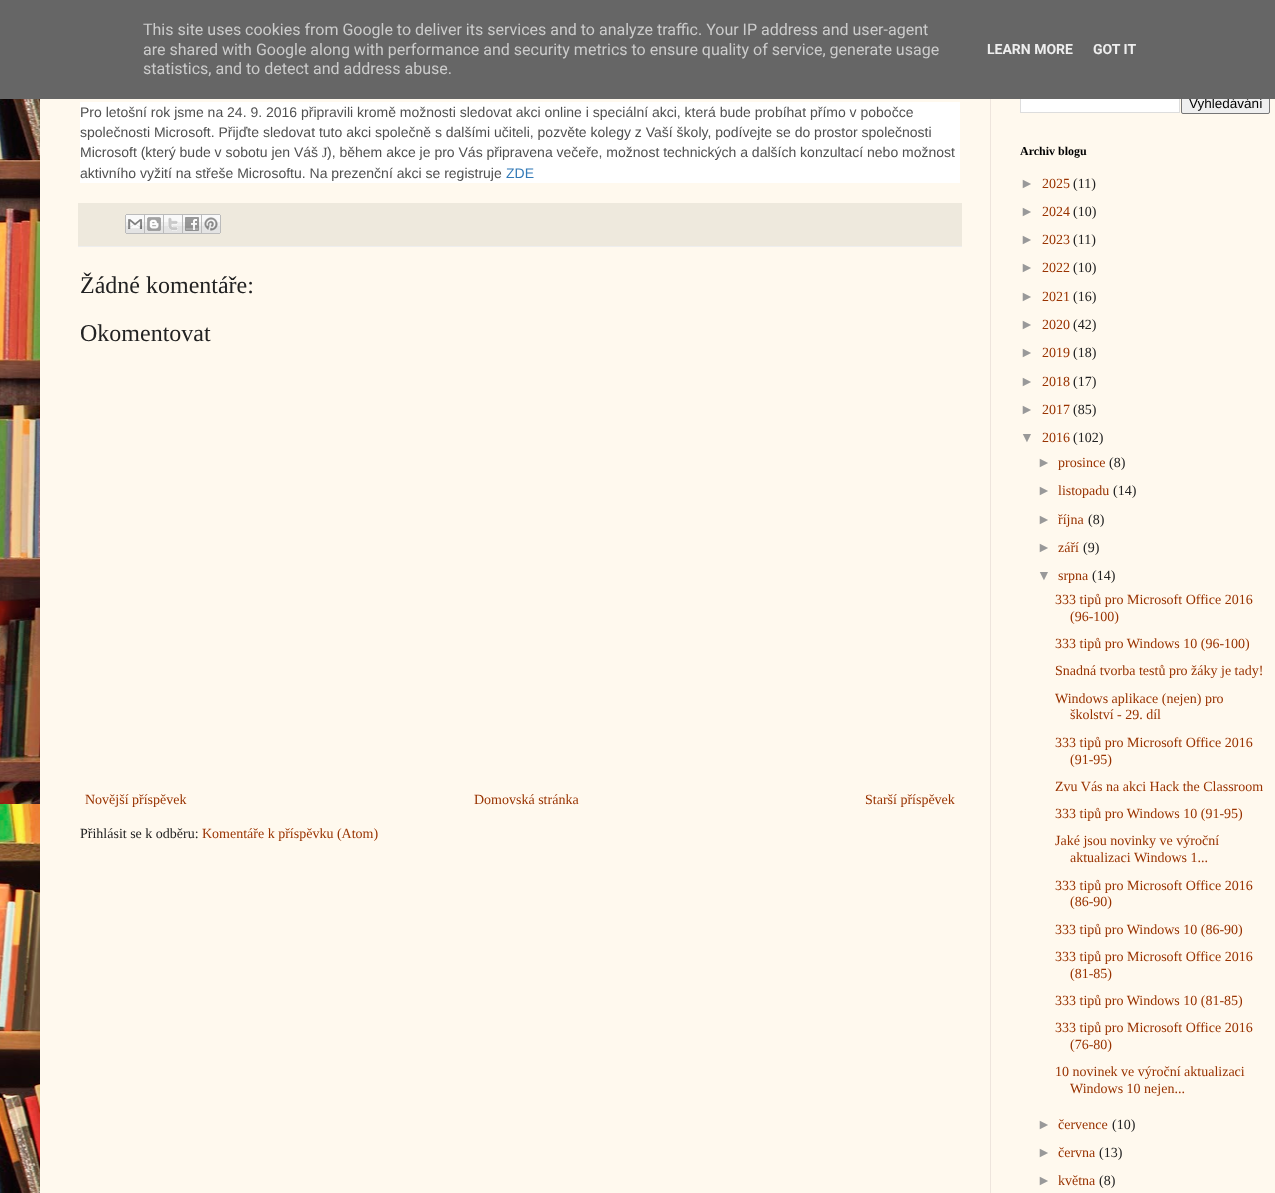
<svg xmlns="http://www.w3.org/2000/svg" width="1275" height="1193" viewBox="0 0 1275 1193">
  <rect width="100%" height="100%" fill="rgb(255,255,255)"/>
  <image x="0" y="99" width="40" height="1094" href="pic1.png"/>
  <rect x="40" y="-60" width="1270" height="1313" fill="rgba(0,0,0,0.15)" filter="blur(20px)"/>
  <rect x="40" y="99" width="1235" height="1094" fill="rgb(255,249,238)"/>
  <rect x="1021" y="99" width="158" height="13" fill="rgb(255,255,255)"/>
  <rect x="1020.5" y="94.5" width="159" height="18" fill="none" stroke="rgb(221,221,221)"/>
  <rect x="1181.5" y="93.5" width="88" height="20" rx="1.5" fill="rgb(239,239,239)" stroke="rgb(118,118,118)"/>
  <text x="1189" y="108" font-family="Liberation Sans" font-size="13.5" fill="rgb(0,0,0)">Vyhledávání</text>
  <rect x="0" y="0" width="1275" height="99" fill="rgb(102,102,102)"/>
  <g font-family="Roboto" font-size="16" fill="rgb(204,204,204)">
    <text>
      <tspan x="143" y="35">This site uses cookies from Google to deliver its services and to analyze traffic. Your IP address and user-agent</tspan>
      <tspan x="143" y="55">are shared with Google along with performance and security metrics to ensure quality of service, generate usage</tspan>
      <tspan x="143" y="74">statistics, and to detect and address abuse.</tspan>
    </text>
  </g>
  <g font-family="Roboto" font-size="14" font-weight="bold" fill="rgb(238,238,238)">
    <text x="987" y="54">LEARN MORE</text>
    <text x="1093" y="54">GOT IT</text>
  </g>
  <rect x="80" y="102" width="880" height="81" fill="rgb(255,255,255)"/>
  <g font-family="Liberation Sans" font-size="14" fill="rgb(80,80,80)">
    <text>
      <tspan x="80" y="117">Pro letošní rok jsme na 24. 9. 2016 připravili kromě možnosti sledovat akci online i speciální akci, která bude probíhat přímo v pobočce</tspan>
      <tspan x="80" y="137">společnosti Microsoft. Přijďte sledovat tuto akci společně s dalšími učiteli, pozvěte kolegy z Vaší školy, podívejte se do prostor společnosti</tspan>
      <tspan x="80" y="157">Microsoft (který bude v sobotu jen Váš</tspan>
    </text>
  </g>
  <text x="322" y="157" font-family="Liberation Serif" font-size="14" fill="rgb(80,80,80)">J</text>
  <g font-family="Liberation Sans" font-size="14" fill="rgb(80,80,80)">
    <text x="327" y="157">), během akce je pro Vás připravena večeře, možnost technických a dalších konzultací nebo možnost</text>
    <text x="80" y="178">aktivního vyžití na střeše Microsoftu. Na prezenční akci se registruje</text>
  </g>
  <text x="506" y="178" font-family="Liberation Sans" font-size="14" fill="rgb(51,122,183)">ZDE</text>
  <rect x="78" y="203" width="884" height="43" fill="rgb(238,233,221)"/>
  <rect x="78" y="246" width="884" height="1" fill="rgb(238,238,238)"/>
  <image x="125" y="214" width="20" height="20" href="pic2.png"/>
  <image x="145" y="214" width="19" height="20" href="pic3.png"/>
  <image x="164" y="214" width="19" height="20" href="pic4.png"/>
  <image x="183" y="214" width="19" height="20" href="pic5.png"/>
  <image x="202" y="214" width="19" height="20" href="pic6.png"/>
  <g font-family="Liberation Serif" font-size="24" fill="rgb(34,34,34)">
    <text x="80" y="293">Žádné komentáře:</text>
    <text x="80" y="341">Okomentovat</text>
  </g>
  <g font-family="Liberation Serif" font-size="14" fill="rgb(153,51,0)">
    <text x="85" y="804">Novější příspěvek</text>
    <text x="474" y="804">Domovská stránka</text>
    <text x="865" y="804">Starší příspěvek</text>
  </g>
  <text x="80" y="838" font-family="Liberation Serif" font-size="14" fill="rgb(34,34,34)">Přihlásit se k odběru:</text>
  <text x="202" y="838" font-family="Liberation Serif" font-size="14" fill="rgb(153,51,0)">Komentáře k příspěvku (Atom)</text>
  <text x="1020" y="155" font-family="Liberation Serif" font-size="12" font-weight="bold" fill="rgb(0,0,0)">Archiv blogu</text>
  <text x="1020" y="188" font-family="Liberation Sans" font-size="14" fill="rgb(153,153,153)">►</text>
  <text x="1042" y="188" font-family="Liberation Serif" font-size="14" fill="rgb(153,51,0)">2025</text>
  <text x="1073" y="188" font-family="Liberation Serif" font-size="14" fill="rgb(34,34,34)">(11)</text>
  <text x="1020" y="216" font-family="Liberation Sans" font-size="14" fill="rgb(153,153,153)">►</text>
  <text x="1042" y="216" font-family="Liberation Serif" font-size="14" fill="rgb(153,51,0)">2024</text>
  <text x="1073" y="216" font-family="Liberation Serif" font-size="14" fill="rgb(34,34,34)">(10)</text>
  <text x="1020" y="244" font-family="Liberation Sans" font-size="14" fill="rgb(153,153,153)">►</text>
  <text x="1042" y="244" font-family="Liberation Serif" font-size="14" fill="rgb(153,51,0)">2023</text>
  <text x="1073" y="244" font-family="Liberation Serif" font-size="14" fill="rgb(34,34,34)">(11)</text>
  <text x="1020" y="272" font-family="Liberation Sans" font-size="14" fill="rgb(153,153,153)">►</text>
  <text x="1042" y="272" font-family="Liberation Serif" font-size="14" fill="rgb(153,51,0)">2022</text>
  <text x="1073" y="272" font-family="Liberation Serif" font-size="14" fill="rgb(34,34,34)">(10)</text>
  <text x="1020" y="301" font-family="Liberation Sans" font-size="14" fill="rgb(153,153,153)">►</text>
  <text x="1042" y="301" font-family="Liberation Serif" font-size="14" fill="rgb(153,51,0)">2021</text>
  <text x="1073" y="301" font-family="Liberation Serif" font-size="14" fill="rgb(34,34,34)">(16)</text>
  <text x="1020" y="329" font-family="Liberation Sans" font-size="14" fill="rgb(153,153,153)">►</text>
  <text x="1042" y="329" font-family="Liberation Serif" font-size="14" fill="rgb(153,51,0)">2020</text>
  <text x="1073" y="329" font-family="Liberation Serif" font-size="14" fill="rgb(34,34,34)">(42)</text>
  <text x="1020" y="357" font-family="Liberation Sans" font-size="14" fill="rgb(153,153,153)">►</text>
  <text x="1042" y="357" font-family="Liberation Serif" font-size="14" fill="rgb(153,51,0)">2019</text>
  <text x="1073" y="357" font-family="Liberation Serif" font-size="14" fill="rgb(34,34,34)">(18)</text>
  <text x="1020" y="386" font-family="Liberation Sans" font-size="14" fill="rgb(153,153,153)">►</text>
  <text x="1042" y="386" font-family="Liberation Serif" font-size="14" fill="rgb(153,51,0)">2018</text>
  <text x="1073" y="386" font-family="Liberation Serif" font-size="14" fill="rgb(34,34,34)">(17)</text>
  <text x="1020" y="414" font-family="Liberation Sans" font-size="14" fill="rgb(153,153,153)">►</text>
  <text x="1042" y="414" font-family="Liberation Serif" font-size="14" fill="rgb(153,51,0)">2017</text>
  <text x="1073" y="414" font-family="Liberation Serif" font-size="14" fill="rgb(34,34,34)">(85)</text>
  <text x="1020" y="442" font-family="Liberation Sans" font-size="14" fill="rgb(153,153,153)">▼</text>
  <text x="1042" y="442" font-family="Liberation Serif" font-size="14" fill="rgb(153,51,0)">2016</text>
  <text x="1073" y="442" font-family="Liberation Serif" font-size="14" fill="rgb(34,34,34)">(102)</text>
  <text x="1037" y="467" font-family="Liberation Sans" font-size="14" fill="rgb(153,153,153)">►</text>
  <text x="1058" y="467" font-family="Liberation Serif" font-size="14" fill="rgb(153,51,0)">prosince</text>
  <text x="1109" y="467" font-family="Liberation Serif" font-size="14" fill="rgb(34,34,34)">(8)</text>
  <text x="1037" y="495" font-family="Liberation Sans" font-size="14" fill="rgb(153,153,153)">►</text>
  <text x="1058" y="495" font-family="Liberation Serif" font-size="14" fill="rgb(153,51,0)">listopadu</text>
  <text x="1113" y="495" font-family="Liberation Serif" font-size="14" fill="rgb(34,34,34)">(14)</text>
  <text x="1037" y="524" font-family="Liberation Sans" font-size="14" fill="rgb(153,153,153)">►</text>
  <text x="1058" y="524" font-family="Liberation Serif" font-size="14" fill="rgb(153,51,0)">října</text>
  <text x="1088" y="524" font-family="Liberation Serif" font-size="14" fill="rgb(34,34,34)">(8)</text>
  <text x="1037" y="552" font-family="Liberation Sans" font-size="14" fill="rgb(153,153,153)">►</text>
  <text x="1058" y="552" font-family="Liberation Serif" font-size="14" fill="rgb(153,51,0)">září</text>
  <text x="1083" y="552" font-family="Liberation Serif" font-size="14" fill="rgb(34,34,34)">(9)</text>
  <text x="1037" y="580" font-family="Liberation Sans" font-size="14" fill="rgb(153,153,153)">▼</text>
  <text x="1058" y="580" font-family="Liberation Serif" font-size="14" fill="rgb(153,51,0)">srpna</text>
  <text x="1092" y="580" font-family="Liberation Serif" font-size="14" fill="rgb(34,34,34)">(14)</text>
  <g font-family="Liberation Serif" font-size="14" fill="rgb(153,51,0)">
    <text x="1055" y="604">333 tipů pro Microsoft Office 2016</text>
    <text x="1070" y="621">(96-100)</text>
    <text>
      <tspan x="1055" y="648">333 tipů pro Windows 10 (96-100)</tspan>
      <tspan x="1055" y="675">Snadná tvorba testů pro žáky je tady!</tspan>
    </text>
    <text x="1055" y="703">Windows aplikace (nejen) pro</text>
    <text x="1070" y="719">školství - 29. díl</text>
    <text x="1055" y="747">333 tipů pro Microsoft Office 2016</text>
    <text x="1070" y="764">(91-95)</text>
    <text>
      <tspan x="1055" y="791">Zvu Vás na akci Hack the Classroom</tspan>
      <tspan x="1055" y="818">333 tipů pro Windows 10 (91-95)</tspan>
      <tspan x="1055" y="845">Jaké jsou novinky ve výroční</tspan>
    </text>
    <text x="1070" y="862">aktualizaci Windows 1...</text>
    <text x="1055" y="890">333 tipů pro Microsoft Office 2016</text>
    <text x="1070" y="906">(86-90)</text>
    <text>
      <tspan x="1055" y="934">333 tipů pro Windows 10 (86-90)</tspan>
      <tspan x="1055" y="961">333 tipů pro Microsoft Office 2016</tspan>
    </text>
    <text x="1070" y="978">(81-85)</text>
    <text>
      <tspan x="1055" y="1005">333 tipů pro Windows 10 (81-85)</tspan>
      <tspan x="1055" y="1032">333 tipů pro Microsoft Office 2016</tspan>
    </text>
    <text x="1070" y="1049">(76-80)</text>
    <text x="1055" y="1076">10 novinek ve výroční aktualizaci</text>
    <text x="1070" y="1093">Windows 10 nejen...</text>
  </g>
  <text x="1037" y="1129" font-family="Liberation Sans" font-size="14" fill="rgb(153,153,153)">►</text>
  <text x="1058" y="1129" font-family="Liberation Serif" font-size="14" fill="rgb(153,51,0)">července</text>
  <text x="1112" y="1129" font-family="Liberation Serif" font-size="14" fill="rgb(34,34,34)">(10)</text>
  <text x="1037" y="1157" font-family="Liberation Sans" font-size="14" fill="rgb(153,153,153)">►</text>
  <text x="1058" y="1157" font-family="Liberation Serif" font-size="14" fill="rgb(153,51,0)">června</text>
  <text x="1099" y="1157" font-family="Liberation Serif" font-size="14" fill="rgb(34,34,34)">(13)</text>
  <text x="1037" y="1185" font-family="Liberation Sans" font-size="14" fill="rgb(153,153,153)">►</text>
  <text x="1058" y="1185" font-family="Liberation Serif" font-size="14" fill="rgb(153,51,0)">května</text>
  <text x="1099" y="1185" font-family="Liberation Serif" font-size="14" fill="rgb(34,34,34)">(8)</text>
  <rect x="990" y="99" width="1" height="1094" fill="rgb(238,229,221)"/>
</svg>
